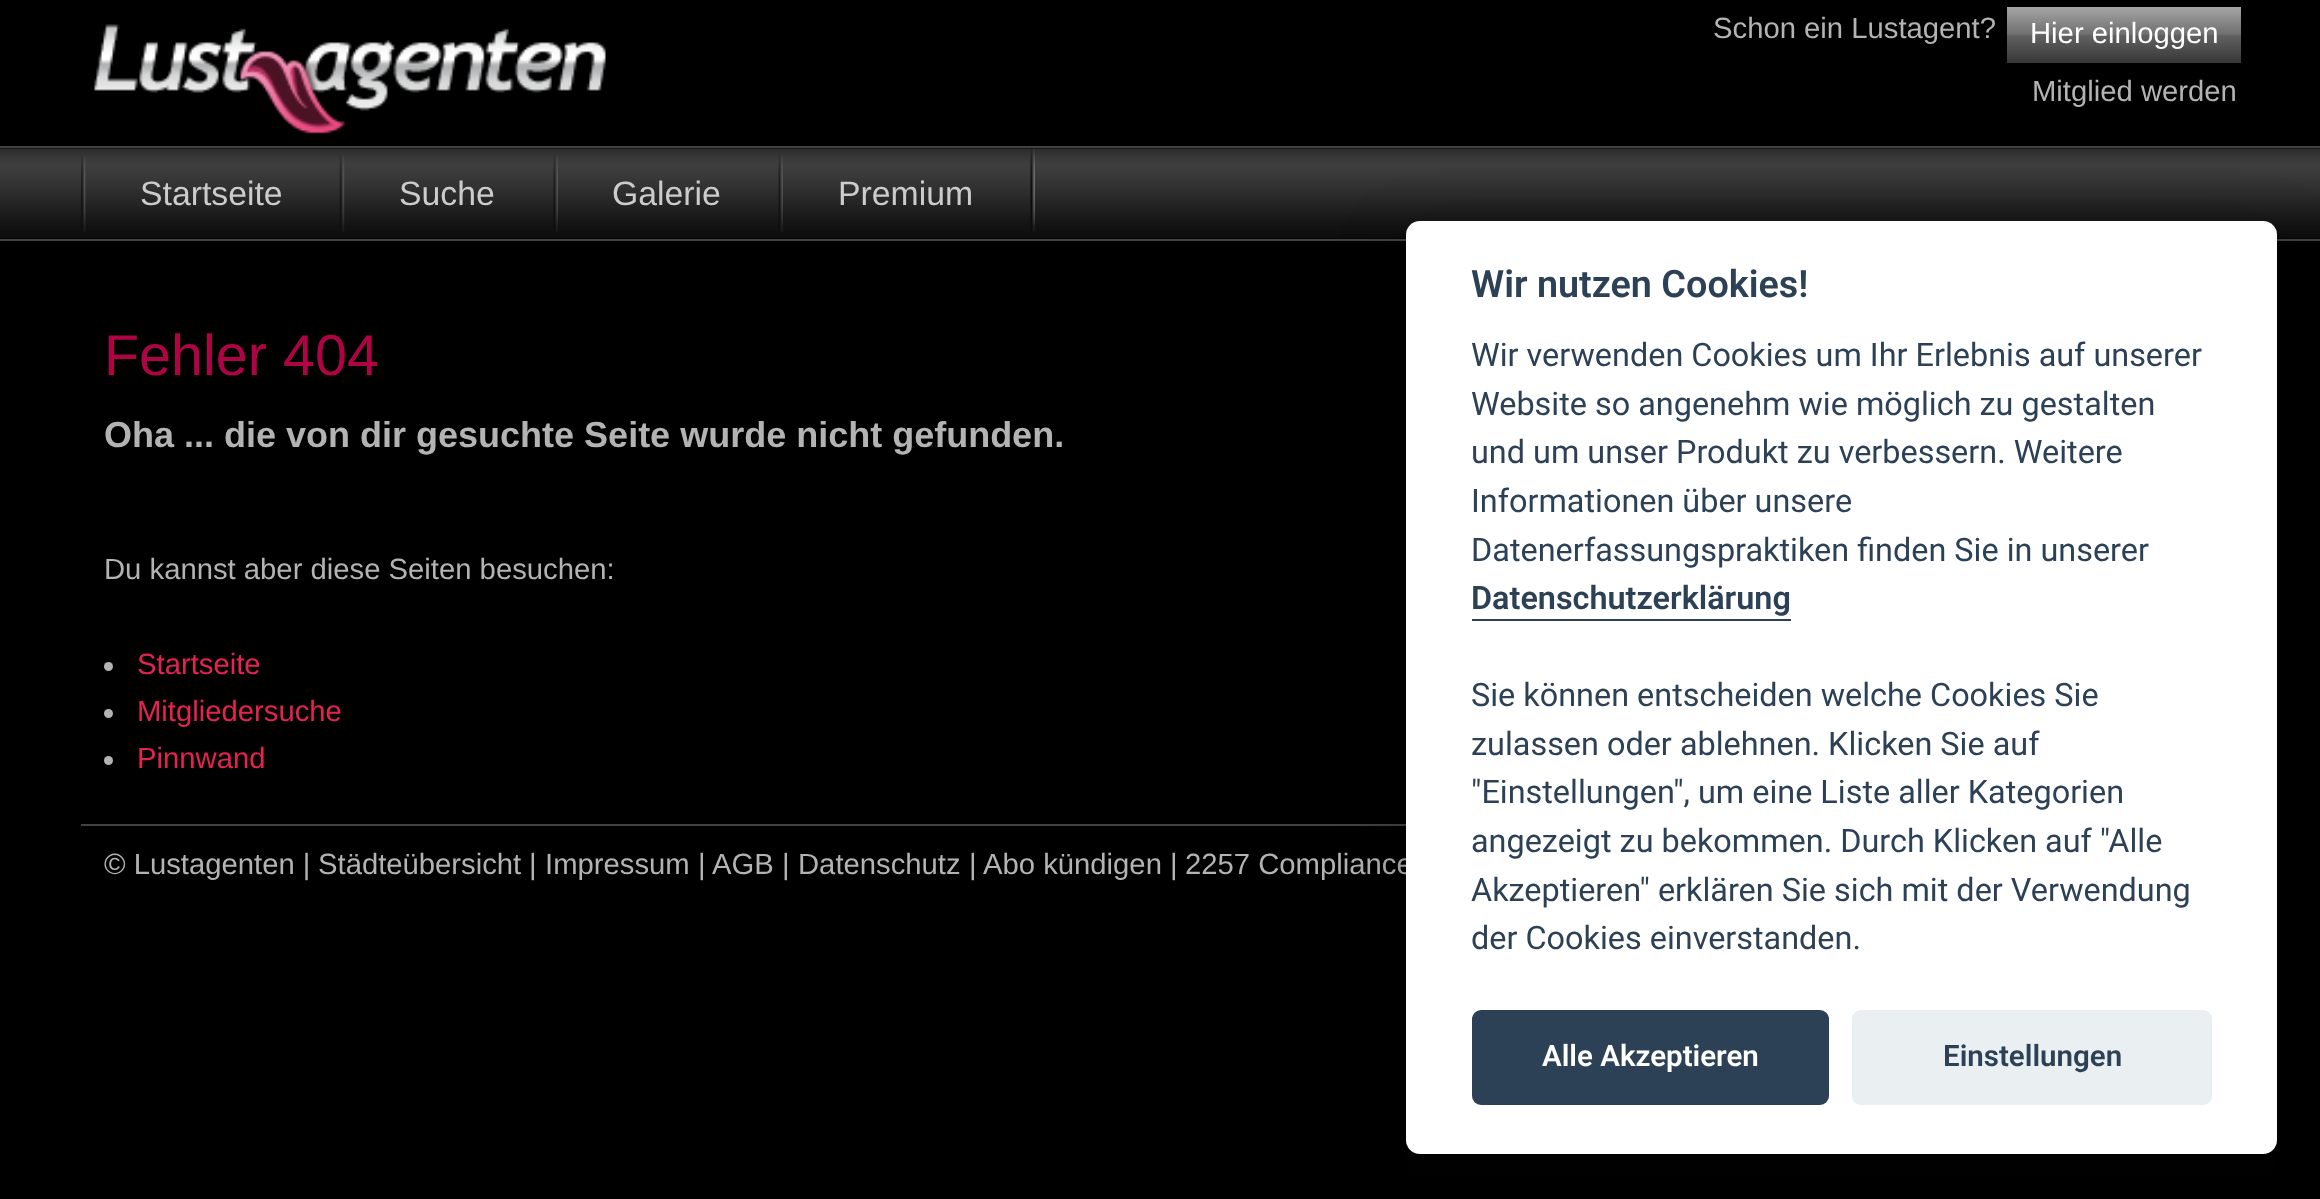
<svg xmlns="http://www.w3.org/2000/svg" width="2320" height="1199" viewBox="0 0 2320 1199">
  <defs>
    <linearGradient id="g1" gradientUnits="userSpaceOnUse" x1="2124" y1="6.7" x2="2124" y2="63"><stop offset="0" stop-color="rgb(166,166,166)"/><stop offset="0.49" stop-color="rgb(111,111,111)"/><stop offset="0.51" stop-color="rgb(97,97,97)"/><stop offset="1" stop-color="rgb(55,55,55)"/></linearGradient>
  </defs>
  <rect width="100%" height="100%" fill="rgb(0,0,0)"/>
  <image x="94" y="24" width="512" height="110" href="pic1.png"/>
  <text x="1713" y="38" font-family="Liberation Sans" font-size="29.25" fill="rgb(179,179,179)">Schon ein Lustagent?</text>
  <rect x="2007" y="7" width="234" height="56" fill="url(#g1)"/>
  <text x="2030" y="43" font-family="Liberation Sans" font-size="29.25" fill="rgb(255,255,255)">Hier einloggen</text>
  <text x="2032" y="101" font-family="Liberation Sans" font-size="29.25" fill="rgb(179,179,179)">Mitglied werden</text>
  <image x="0" y="148" width="2320" height="91" href="pic2.png"/>
  <rect x="0" y="146" width="2320" height="2" fill="rgb(66,66,66)"/>
  <rect x="0" y="239" width="2320" height="2" fill="rgb(66,66,66)"/>
  <image x="1030" y="155" width="5" height="77" href="pic3.png"/>
  <image x="81" y="155" width="5" height="77" href="pic4.png"/>
  <text x="140" y="205" font-family="Liberation Sans" font-size="33.75" fill="rgb(204,204,204)">Startseite</text>
  <image x="339" y="155" width="6" height="77" href="pic5.png"/>
  <text x="399" y="205" font-family="Liberation Sans" font-size="33.75" fill="rgb(204,204,204)">Suche</text>
  <image x="553" y="155" width="5" height="77" href="pic3.png"/>
  <text x="612" y="205" font-family="Liberation Sans" font-size="33.75" fill="rgb(204,204,204)">Galerie</text>
  <image x="778" y="155" width="5" height="77" href="pic3.png"/>
  <text x="838" y="205" font-family="Liberation Sans" font-size="33.75" fill="rgb(204,204,204)">Premium</text>
  <image x="1030" y="148" width="5" height="77" href="pic6.png"/>
  <text x="104" y="375" font-family="Liberation Sans" font-size="57.5" fill="rgb(174,3,69)">Fehler 404</text>
  <text x="104" y="447" font-family="Liberation Sans" font-size="36" font-weight="bold" fill="rgb(179,179,179)">Oha ... die von dir gesuchte Seite wurde nicht gefunden.</text>
  <text x="104" y="579" font-family="Liberation Sans" font-size="29.25" fill="rgb(179,179,179)">Du kannst aber diese Seiten besuchen:</text>
  <circle cx="108.5" cy="666.5" r="4.5" fill="rgb(179,179,179)"/>
  <text x="137" y="674" font-family="Liberation Sans" font-size="29.25" fill="rgb(230,34,80)">Startseite</text>
  <circle cx="108.5" cy="713.5" r="4.5" fill="rgb(179,179,179)"/>
  <text x="137" y="721" font-family="Liberation Sans" font-size="29.25" fill="rgb(230,34,80)">Mitgliedersuche</text>
  <circle cx="108.5" cy="760.5" r="4.5" fill="rgb(179,179,179)"/>
  <text x="137" y="768" font-family="Liberation Sans" font-size="29.25" fill="rgb(230,34,80)">Pinnwand</text>
  <rect x="81" y="824" width="1325" height="2" fill="rgb(66,66,66)"/>
  <g font-family="Liberation Sans" font-size="29.25" fill="rgb(179,179,179)">
    <text x="104" y="874">© Lustagenten |</text>
    <text x="318" y="874">Städteübersicht</text>
    <text x="529" y="874">|</text>
    <text x="545" y="874">Impressum</text>
    <text x="698" y="874">|</text>
    <text x="712" y="874">AGB</text>
    <text x="782" y="874">|</text>
    <text x="798" y="874">Datenschutz</text>
    <text x="969" y="874">|</text>
    <text x="983" y="874">Abo kündigen</text>
    <text x="1170" y="874">|</text>
    <text x="1185" y="874">2257 Compliance</text>
  </g>
  <rect x="1406" y="243" width="871" height="934" rx="14" fill="rgba(2,2,3,0.28)" filter="blur(34px)"/>
  <rect x="1406" y="221" width="871" height="933" rx="14" fill="rgb(255,255,255)"/>
  <text x="1471" y="297" font-family="Roboto" font-size="37.75" font-weight="600" fill="rgb(45,65,86)">Wir nutzen Cookies!</text>
  <g font-family="Roboto" font-size="32.4" fill="rgb(45,65,86)">
    <text>
      <tspan x="1471" y="366">Wir verwenden Cookies um Ihr Erlebnis auf unserer</tspan>
      <tspan x="1471" y="415">Website so angenehm wie möglich zu gestalten</tspan>
      <tspan x="1471" y="463">und um unser Produkt zu verbessern. Weitere</tspan>
      <tspan x="1471" y="512">Informationen über unsere</tspan>
      <tspan x="1471" y="561">Datenerfassungspraktiken finden Sie in unserer</tspan>
    </text>
  </g>
  <text x="1471" y="609" font-family="Roboto" font-size="32.4" font-weight="600" fill="rgb(45,65,86)">Datenschutzerklärung</text>
  <rect x="1472" y="619" width="319" height="2" fill="rgb(45,65,86)"/>
  <g font-family="Roboto" font-size="32.4" fill="rgb(45,65,86)">
    <text>
      <tspan x="1471" y="706">Sie können entscheiden welche Cookies Sie</tspan>
      <tspan x="1471" y="755">zulassen oder ablehnen. Klicken Sie auf</tspan>
      <tspan x="1471" y="803">"Einstellungen", um eine Liste aller Kategorien</tspan>
      <tspan x="1471" y="852">angezeigt zu bekommen. Durch Klicken auf "Alle</tspan>
      <tspan x="1471" y="901">Akzeptieren" erklären Sie sich mit der Verwendung</tspan>
      <tspan x="1471" y="949">der Cookies einverstanden.</tspan>
    </text>
  </g>
  <rect x="1472" y="1010" width="357" height="95" rx="9" fill="rgb(45,65,86)"/>
  <text x="1542" y="1066" font-family="Roboto" font-size="29.5" font-weight="600" fill="rgb(255,255,255)">Alle Akzeptieren</text>
  <rect x="1852" y="1010" width="360" height="95" rx="9" fill="rgb(234,239,242)"/>
  <text x="1943" y="1066" font-family="Roboto" font-size="29.5" font-weight="600" fill="rgb(45,65,86)">Einstellungen</text>
</svg>
